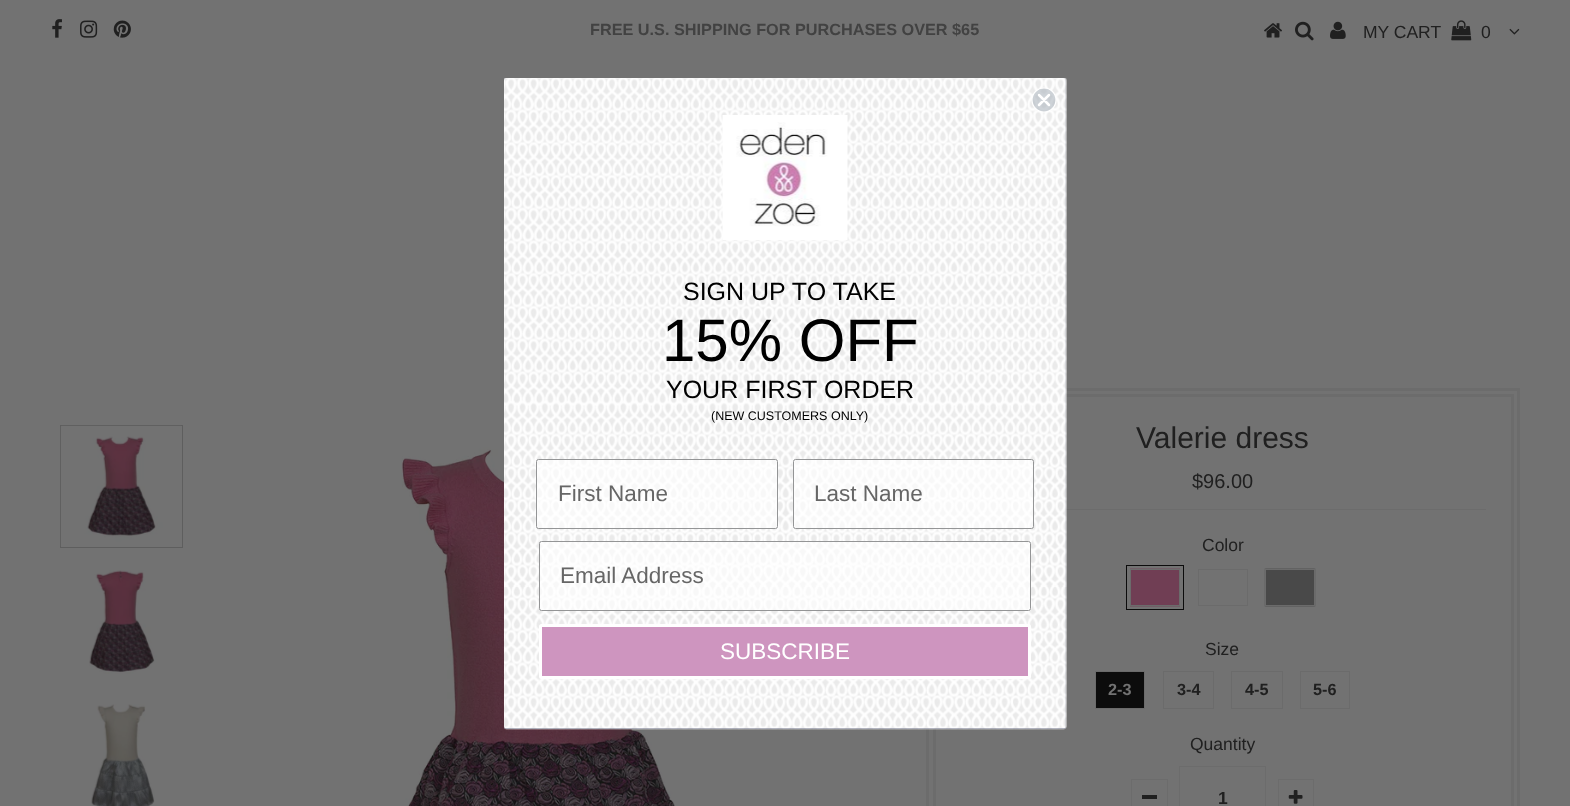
<svg xmlns="http://www.w3.org/2000/svg" width="1570" height="806" viewBox="0 0 1570 806">
  <rect width="100%" height="100%" fill="rgb(114,114,114)"/>
  <image x="52" y="19" width="10" height="19" href="pic1.png"/>
  <image x="80" y="20" width="18" height="18" href="pic2.png"/>
  <image x="113" y="20" width="18" height="18" href="pic3.png"/>
  <text x="590" y="35" font-family="Liberation Sans" font-size="16.25" font-weight="bold" fill="rgb(66,66,66)">FREE U.S. SHIPPING FOR PURCHASES OVER $65</text>
  <image x="1264" y="23" width="18" height="15" href="pic4.png"/>
  <image x="1295" y="21" width="19" height="20" href="pic5.png"/>
  <image x="1330" y="21" width="16" height="18" href="pic6.png"/>
  <text x="1363" y="38" font-family="Liberation Sans" font-size="17.5" fill="rgb(32,32,32)">MY CART</text>
  <image x="1451" y="20" width="21" height="21" href="pic7.png"/>
  <text x="1481" y="38" font-family="Liberation Sans" font-size="17.5" fill="rgb(32,32,32)">0</text>
  <image x="1509" y="28" width="11" height="7" href="pic8.png"/>
  <rect x="60.5" y="425.5" width="122" height="122" fill="none" stroke="rgb(94,94,94)"/>
  <image x="60" y="425" width="121" height="121" href="pic9.png"/>
  <image x="89" y="570" width="68" height="104" href="pic10.png"/>
  <image x="91" y="704" width="64" height="102" href="pic11.png"/>
  <image x="401" y="447" width="274" height="359" href="pic12.png"/>
  <rect x="927.5" y="389.5" width="591" height="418" fill="none" stroke="rgb(108,108,108)" stroke-width="3"/>
  <rect x="934.5" y="395.5" width="578" height="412" fill="none" stroke="rgb(108,108,108)" stroke-width="3"/>
  <text x="1136" y="448" font-family="Liberation Sans" font-size="30" fill="rgb(32,32,32)">Valerie dress</text>
  <text x="1192" y="488" font-family="Liberation Sans" font-size="20" fill="rgb(32,32,32)">$96.00</text>
  <rect x="1066" y="509" width="420" height="1" fill="rgb(108,108,108)"/>
  <text x="1202" y="551" font-family="Liberation Sans" font-size="17.5" fill="rgb(32,32,32)">Color</text>
  <image x="1130" y="568" width="50" height="39" href="pic13.png"/>
  <rect x="1130.5" y="569.5" width="49" height="36" fill="none" stroke="rgb(107,107,107)"/>
  <rect x="1126.5" y="565.5" width="57" height="44" fill="none" stroke="rgb(12,12,12)"/>
  <rect x="1198.5" y="569.5" width="49" height="36" fill="none" stroke="rgb(107,107,107)"/>
  <image x="1264" y="568" width="52" height="39" href="pic14.png"/>
  <rect x="1265.5" y="569.5" width="49" height="36" fill="none" stroke="rgb(107,107,107)"/>
  <text x="1205" y="655" font-family="Liberation Sans" font-size="17.5" fill="rgb(32,32,32)">Size</text>
  <rect x="1095.5" y="671.5" width="49" height="37" fill="rgb(12,12,12)" stroke="rgb(107,107,107)"/>
  <text x="1108" y="695" font-family="Liberation Sans" font-size="16.25" font-weight="bold" fill="rgb(114,114,114)">2-3</text>
  <rect x="1163.5" y="671.5" width="50" height="37" fill="none" stroke="rgb(107,107,107)"/>
  <text x="1177" y="695" font-family="Liberation Sans" font-size="16.25" font-weight="bold" fill="rgb(32,32,32)">3-4</text>
  <rect x="1231.5" y="671.5" width="51" height="37" fill="none" stroke="rgb(107,107,107)"/>
  <text x="1245" y="695" font-family="Liberation Sans" font-size="16.25" font-weight="bold" fill="rgb(32,32,32)">4-5</text>
  <rect x="1300.5" y="671.5" width="49" height="37" fill="none" stroke="rgb(107,107,107)"/>
  <text x="1313" y="695" font-family="Liberation Sans" font-size="16.25" font-weight="bold" fill="rgb(32,32,32)">5-6</text>
  <text x="1190" y="750" font-family="Liberation Sans" font-size="17.5" fill="rgb(32,32,32)">Quantity</text>
  <rect x="1131.5" y="779.5" width="36" height="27" fill="none" stroke="rgb(108,108,108)"/>
  <rect x="1142" y="795" width="15" height="4" fill="rgb(32,32,32)"/>
  <rect x="1179.5" y="766.5" width="86" height="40" fill="none" stroke="rgb(108,108,108)"/>
  <text x="1218" y="804" font-family="Liberation Sans" font-size="17.5" font-weight="bold" fill="rgb(32,32,32)">1</text>
  <rect x="1278.5" y="779.5" width="35" height="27" fill="none" stroke="rgb(108,108,108)"/>
  <image x="1288" y="790" width="15" height="14" href="pic15.png"/>
  <rect x="504" y="78" width="562" height="651" rx="2.5" fill="rgb(52,57,87)"/>
  <image x="504" y="78" width="563" height="652" href="pic16.png"/>
  <circle cx="1044" cy="100" r="12" fill="rgba(180,187,195,0.65)" stroke="rgb(255,255,255)" stroke-width="1.2"/>
  <path d="M1039 95L1049 105M1039 105L1049 95Z" fill="none" stroke="rgb(255,255,255)" stroke-width="2.5" stroke-linecap="round" stroke-linejoin="round"/>
  <image x="722" y="115" width="126" height="125" href="pic17.png"/>
  <text x="683" y="300" font-family="Liberation Sans" font-size="25" fill="rgb(0,0,0)">SIGN UP TO TAKE</text>
  <text x="662" y="361" font-family="Liberation Sans" font-size="60" fill="rgb(0,0,0)">15% OFF</text>
  <text x="666" y="398" font-family="Liberation Sans" font-size="25" fill="rgb(0,0,0)">YOUR FIRST ORDER</text>
  <text x="711" y="420" font-family="Liberation Sans" font-size="12.5" fill="rgb(0,0,0)">(NEW CUSTOMERS ONLY)</text>
  <rect x="536.5" y="459.5" width="241" height="69" rx="2" fill="rgba(255,255,255,0.64)" stroke="rgb(148,149,150)"/>
  <text x="558" y="501" font-family="Liberation Sans" font-size="22.5" fill="rgb(102,102,102)">First Name</text>
  <rect x="793.5" y="459.5" width="240" height="69" rx="2" fill="rgba(255,255,255,0.64)" stroke="rgb(148,149,150)"/>
  <text x="814" y="501" font-family="Liberation Sans" font-size="22.5" fill="rgb(102,102,102)">Last Name</text>
  <rect x="539.5" y="541.5" width="491" height="69" rx="2" fill="rgba(255,255,255,0.64)" stroke="rgb(148,149,150)"/>
  <text x="560" y="583" font-family="Liberation Sans" font-size="22.5" fill="rgb(102,102,102)">Email Address</text>
  <rect x="540.5" y="625.5" width="489" height="52" rx="1" fill="rgb(206,149,191)" stroke="rgb(255,255,255)" stroke-width="3"/>
  <text x="720" y="659" font-family="Liberation Sans" font-size="22.5" fill="rgb(255,255,255)">SUBSCRIBE</text>
</svg>
